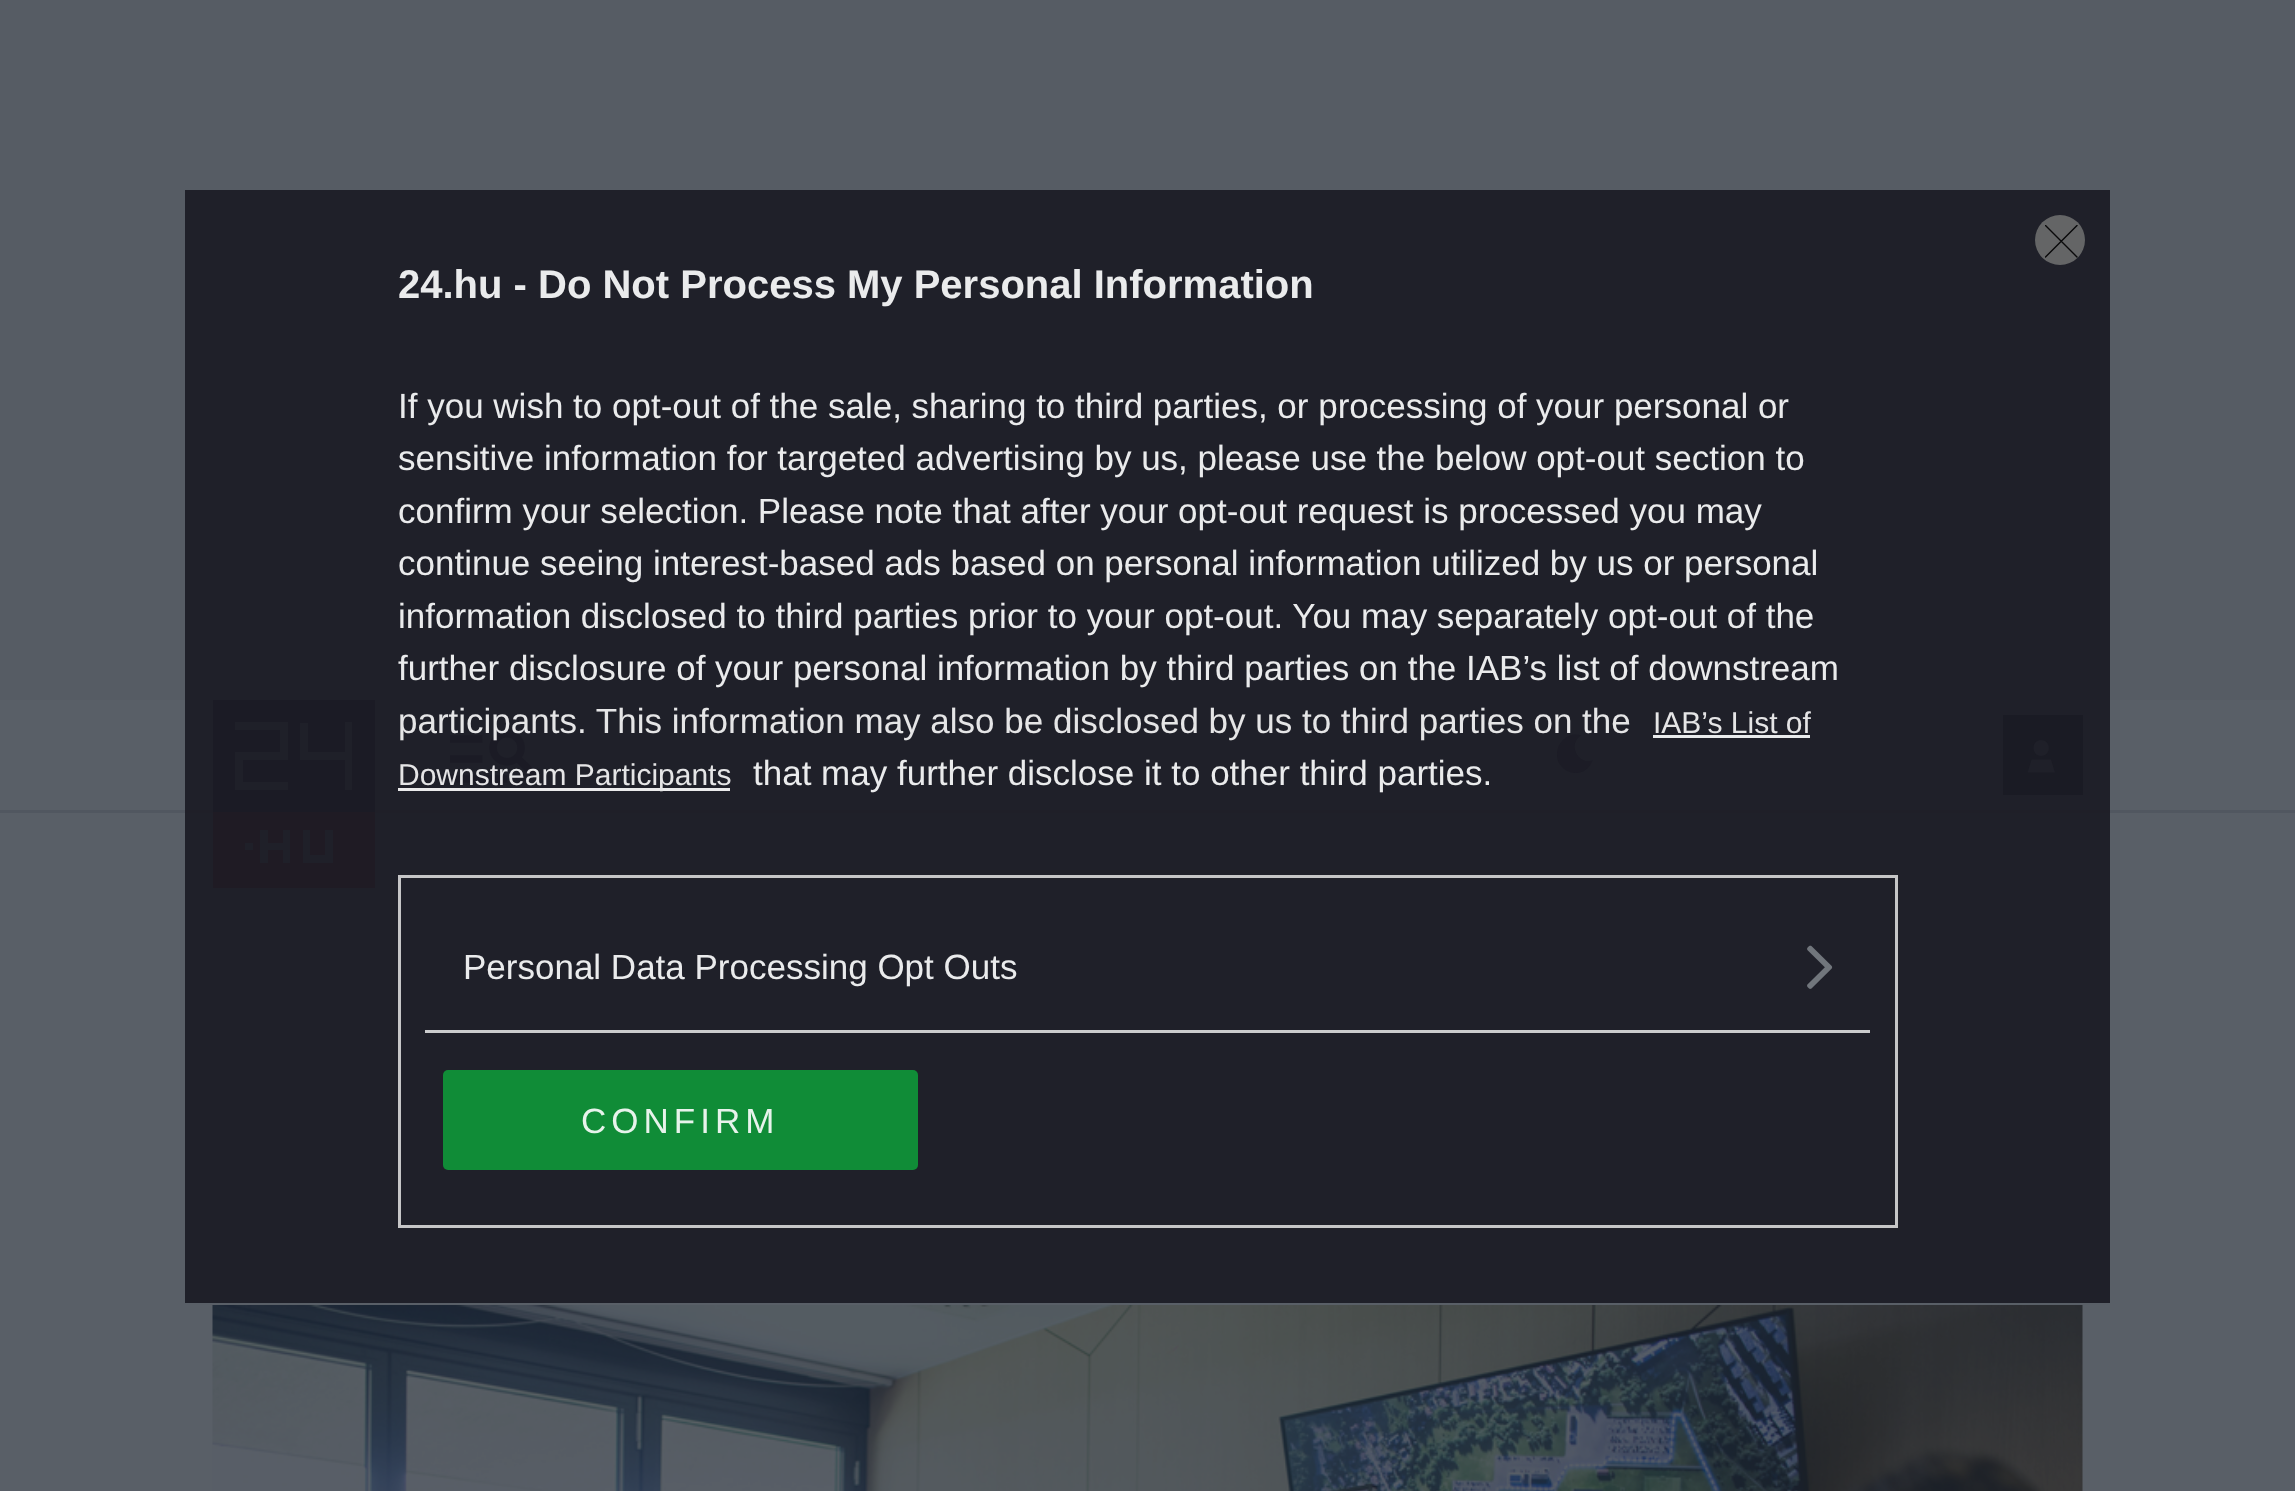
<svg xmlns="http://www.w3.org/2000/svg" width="2295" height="1491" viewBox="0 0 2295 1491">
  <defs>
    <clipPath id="clip1"><rect x="2045" y="225" width="33" height="33"/></clipPath>
  </defs>
  <rect width="100%" height="100%" fill="rgb(89,95,103)"/>
  <rect x="185" y="700" width="1925" height="603" fill="rgb(31,32,41)"/>
  <rect x="0" y="0" width="2295" height="700" fill="rgb(86,92,100)"/>
  <rect x="185" y="190" width="1925" height="510" fill="rgb(31,32,41)"/>
  <rect x="0" y="810" width="2295" height="3" fill="rgb(81,87,96)"/>
  <rect x="185" y="810" width="1925" height="3" fill="rgb(31,31,40)"/>
  <rect x="213" y="812" width="162" height="76" fill="rgb(31,27,36)"/>
  <rect x="213" y="700" width="162" height="112" fill="rgb(27,27,37)"/>
  <rect x="345" y="722" width="7" height="68" fill="rgb(31,32,41)"/>
  <rect x="235" y="722" width="53" height="8" fill="rgb(31,32,41)"/>
  <rect x="280" y="723" width="8" height="37" fill="rgb(31,32,41)"/>
  <rect x="235" y="752" width="53" height="8" fill="rgb(31,32,41)"/>
  <rect x="300" y="752" width="52" height="8" fill="rgb(31,32,41)"/>
  <rect x="235" y="753" width="8" height="37" fill="rgb(31,32,41)"/>
  <rect x="235" y="782" width="53" height="8" fill="rgb(31,32,41)"/>
  <rect x="300" y="723" width="8" height="37" fill="rgb(31,32,41)"/>
  <rect x="303" y="830" width="7" height="33" fill="rgb(31,32,41)"/>
  <rect x="303" y="855" width="30" height="8" fill="rgb(31,32,41)"/>
  <rect x="325" y="830" width="8" height="33" fill="rgb(31,32,41)"/>
  <rect x="245" y="843" width="8" height="7" fill="rgb(31,32,41)"/>
  <rect x="260" y="830" width="8" height="33" fill="rgb(31,32,41)"/>
  <rect x="265" y="843" width="19" height="7" fill="rgb(31,32,41)"/>
  <rect x="283" y="830" width="7" height="33" fill="rgb(31,32,41)"/>
  <image x="450" y="730" width="88" height="53" href="pic1.png"/>
  <path d="M1592.5 760.5C1577.5 765 1567.5 744 1581 735.5C1575.5 733.5 1570 734.5 1565.5 738C1561.5 740.5 1558.5 745 1557.5 750C1553 773 1584.5 782.5 1592.5 760.5Z" fill="rgb(28,28,38)" fill-rule="evenodd"/>
  <rect x="2003" y="715" width="80" height="80" fill="rgb(26,27,36)"/>
  <path d="M2041 756C2051.5 756 2051.5 740 2041 740C2031 740 2031 756 2041 756ZM2055 772.5L2051 759.5H2031.5L2027.5 772.5Z" fill="rgb(31,32,41)"/>
  <image x="212" y="1305" width="1871" height="186" href="pic2.png"/>
  <circle cx="2060" cy="240" r="25" fill="rgb(100,101,102)"/>
  <g clip-path="url(#clip1)">
    <path d="M2045.5 225.5L2077 257M2077 225.5L2045.5 257" fill="none" stroke="rgb(9,9,10)" stroke-width="1.4" stroke-linecap="round" stroke-linejoin="round"/>
  </g>
  <text x="398" y="298" font-family="Liberation Sans" font-size="40" font-weight="bold" fill="rgb(234,235,236)">24.hu - Do Not Process My Personal Information</text>
  <g font-family="Liberation Sans" font-size="35" fill="rgb(234,235,236)">
    <text>
      <tspan x="398" y="418">If you wish to opt-out of the sale, sharing to third parties, or processing of your personal or</tspan>
      <tspan x="398" y="470">sensitive information for targeted advertising by us, please use the below opt-out section to</tspan>
      <tspan x="398" y="523">confirm your selection. Please note that after your opt-out request is processed you may</tspan>
      <tspan x="398" y="575">continue seeing interest-based ads based on personal information utilized by us or personal</tspan>
      <tspan x="398" y="628">information disclosed to third parties prior to your opt-out. You may separately opt-out of the</tspan>
      <tspan x="398" y="680">further disclosure of your personal information by third parties on the IAB’s list of downstream</tspan>
    </text>
  </g>
  <text x="398" y="733" font-family="Liberation Sans" font-size="35" fill="rgb(229,229,230)">participants. This information may also be disclosed by us to third parties on the</text>
  <text x="1653" y="733" font-family="Liberation Sans" font-size="30" fill="rgb(229,229,230)">IAB’s List of</text>
  <rect x="1653" y="735" width="157" height="3" fill="rgb(233,235,236)"/>
  <rect x="398" y="788" width="332" height="3" fill="rgb(235,235,236)"/>
  <text x="398" y="785" font-family="Liberation Sans" font-size="30" fill="rgb(229,229,230)">Downstream Participants</text>
  <text x="753" y="785" font-family="Liberation Sans" font-size="35" fill="rgb(234,235,236)">that may further disclose it to other third parties.</text>
  <rect x="399.5" y="876.5" width="1497" height="350" fill="none" stroke="rgba(216,216,216,0.9)" stroke-width="3"/>
  <rect x="425" y="1030" width="1445" height="3" fill="rgb(203,204,205)"/>
  <text x="463" y="979" font-family="Liberation Sans" font-size="35" fill="rgb(234,235,236)">Personal Data Processing Opt Outs</text>
  <image x="1807" y="945" width="26" height="44" href="pic3.png"/>
  <rect x="443" y="1070" width="475" height="100" rx="5" fill="rgba(14,152,57,0.9)"/>
  <text x="581" y="1133" font-family="Liberation Sans" font-size="35" letter-spacing="5" fill="rgb(231,243,235)">CONFIRM</text>
</svg>
